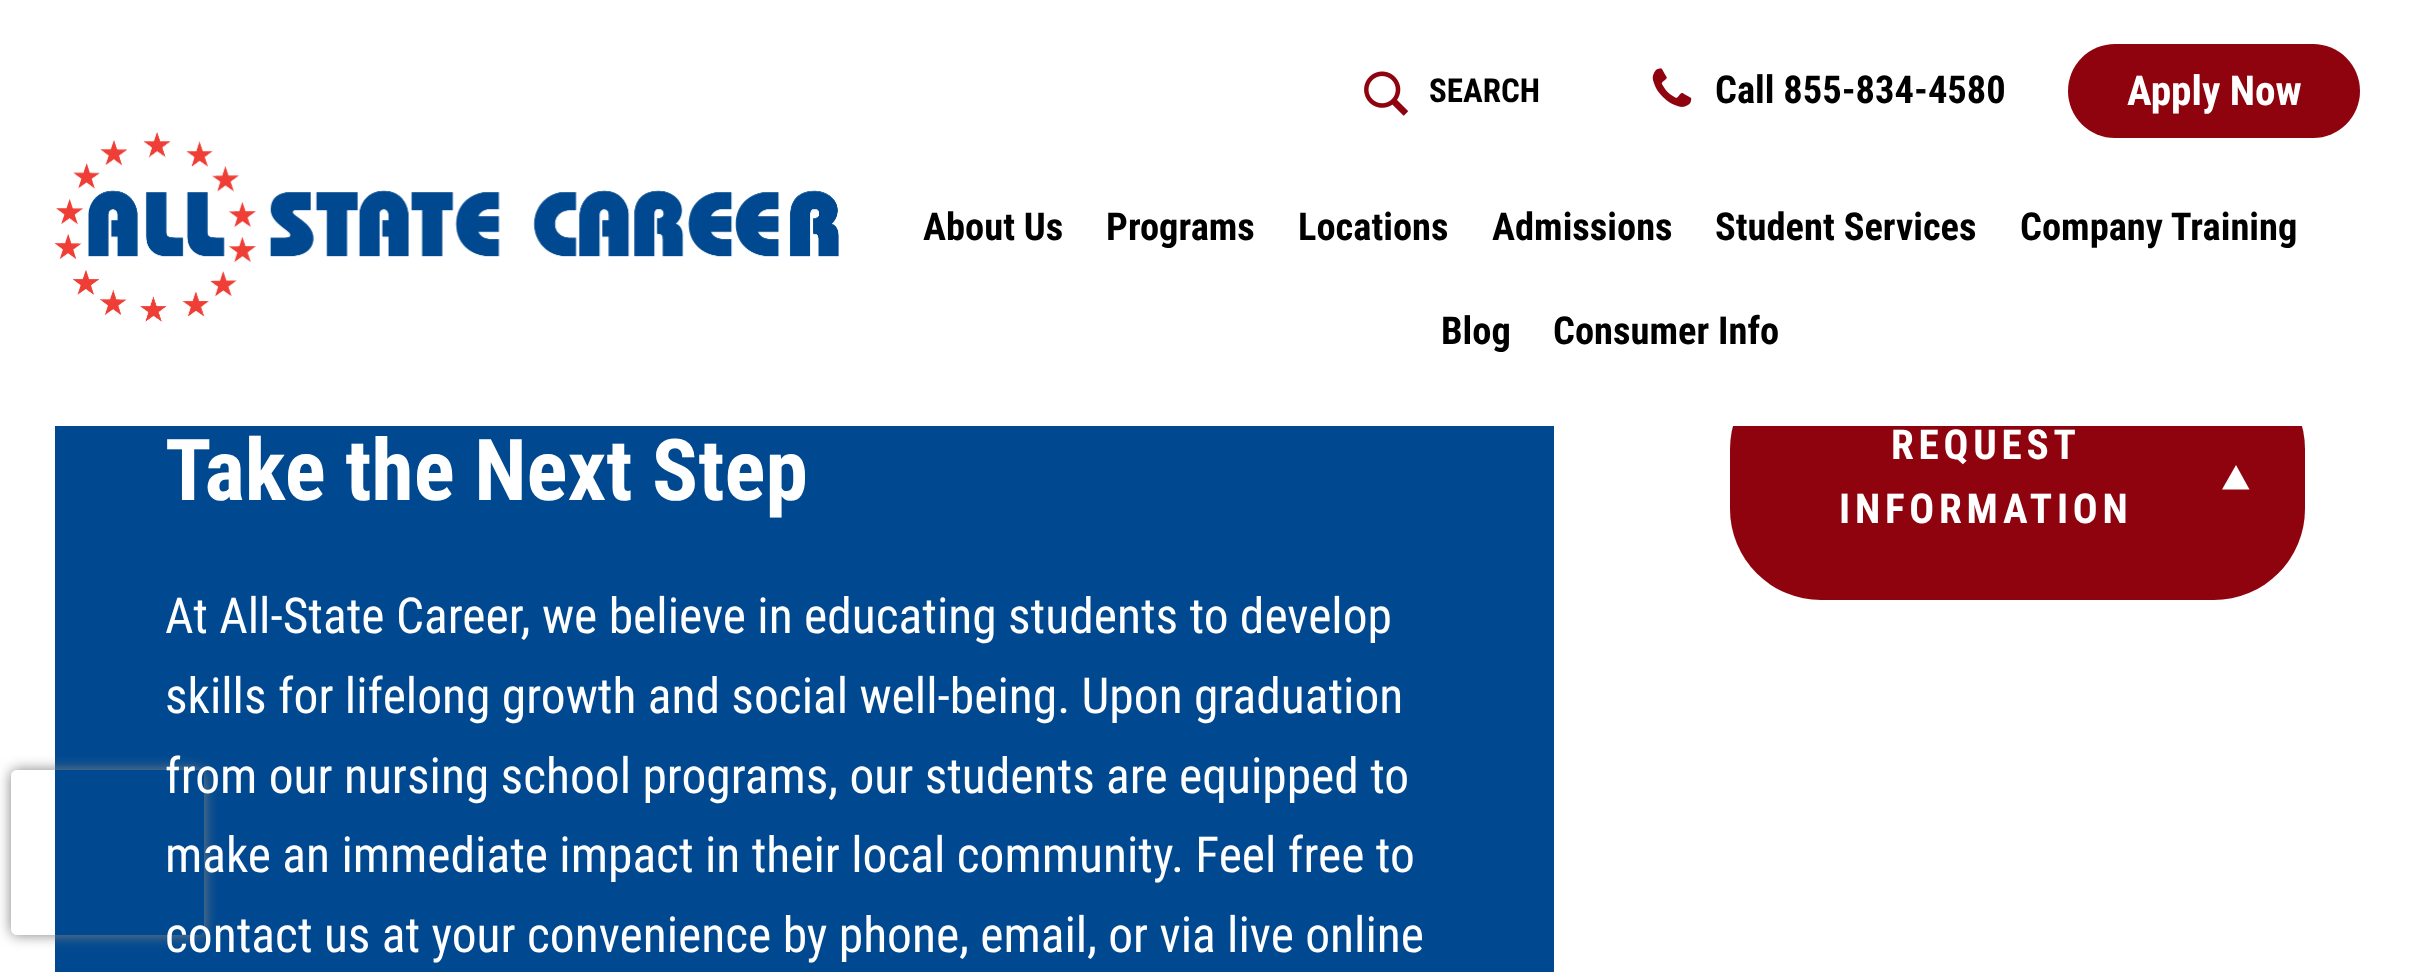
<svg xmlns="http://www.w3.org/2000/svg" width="2412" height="972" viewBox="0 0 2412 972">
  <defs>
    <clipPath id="clip1"><path d="M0 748H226V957H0ZM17 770H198C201.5 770 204 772.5 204 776V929C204 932.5 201.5 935 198 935H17C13.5 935 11 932.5 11 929V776C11 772.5 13.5 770 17 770Z" clip-rule="evenodd"/></clipPath>
  </defs>
  <rect width="100%" height="100%" fill="rgb(255,255,255)"/>
  <rect x="1730" y="358" width="575" height="242" rx="91" fill="rgb(143,3,15)"/>
  <rect x="1733" y="358" width="569" height="68" fill="rgb(255,255,255)"/>
  <image x="55" y="132" width="784" height="190" href="pic1.png"/>
  <image x="1364" y="71" width="44" height="45" href="pic2.png"/>
  <text x="1429" y="102" font-family="Roboto Condensed" font-size="33" font-weight="bold" fill="rgb(0,0,0)">SEARCH</text>
  <image x="1652" y="68" width="40" height="39" href="pic3.png"/>
  <text x="1715" y="103" font-family="Roboto Condensed" font-size="38.5" font-weight="bold" fill="rgb(0,0,0)">Call 855-834-4580</text>
  <rect x="2068" y="44" width="292" height="94" rx="47" fill="rgb(143,3,15)"/>
  <text x="2127" y="105" font-family="Roboto Condensed" font-size="41.25" font-weight="bold" fill="rgb(255,255,255)">Apply Now</text>
  <g font-family="Roboto Condensed" font-size="38.5" font-weight="bold" fill="rgb(0,0,0)">
    <text x="923" y="240">About Us</text>
    <text x="1106" y="240">Programs</text>
    <text x="1298" y="240">Locations</text>
    <text x="1492" y="240">Admissions</text>
    <text x="1715" y="240">Student Services</text>
    <text x="2020" y="240">Company Training</text>
    <text x="1441" y="344">Blog</text>
    <text x="1553" y="344">Consumer Info</text>
  </g>
  <rect x="55" y="426" width="1499" height="546" fill="rgb(0,73,144)"/>
  <g clip-path="url(#clip1)">
    <rect x="11" y="770" width="193" height="165" rx="6" fill="rgb(128,128,128)" filter="blur(7px)"/>
  </g>
  <text x="165" y="500" font-family="Roboto Condensed" font-size="85.5" font-weight="bold" fill="rgb(255,255,255)">Take the Next Step</text>
  <g font-family="Roboto Condensed" font-size="49.5" fill="rgb(255,255,255)">
    <text>
      <tspan x="165" y="633">At All-State Career, we believe in educating students to develop</tspan>
      <tspan x="165" y="713">skills for lifelong growth and social well-being. Upon graduation</tspan>
      <tspan x="165" y="793">from our nursing school programs, our students are equipped to</tspan>
      <tspan x="165" y="872">make an immediate impact in their local community. Feel free to</tspan>
      <tspan x="165" y="952">contact us at your convenience by phone, email, or via live online</tspan>
    </text>
  </g>
  <text x="1891" y="459" font-family="Roboto Condensed" font-size="41.25" font-weight="bold" letter-spacing="4.75" fill="rgb(255,255,255)">REQUEST</text>
  <path d="M2249.5 489.5H2222L2236 465Z" fill="rgb(255,255,255)"/>
  <text x="1839" y="523" font-family="Roboto Condensed" font-size="41.25" font-weight="bold" letter-spacing="4.75" fill="rgb(255,255,255)">INFORMATION</text>
</svg>
